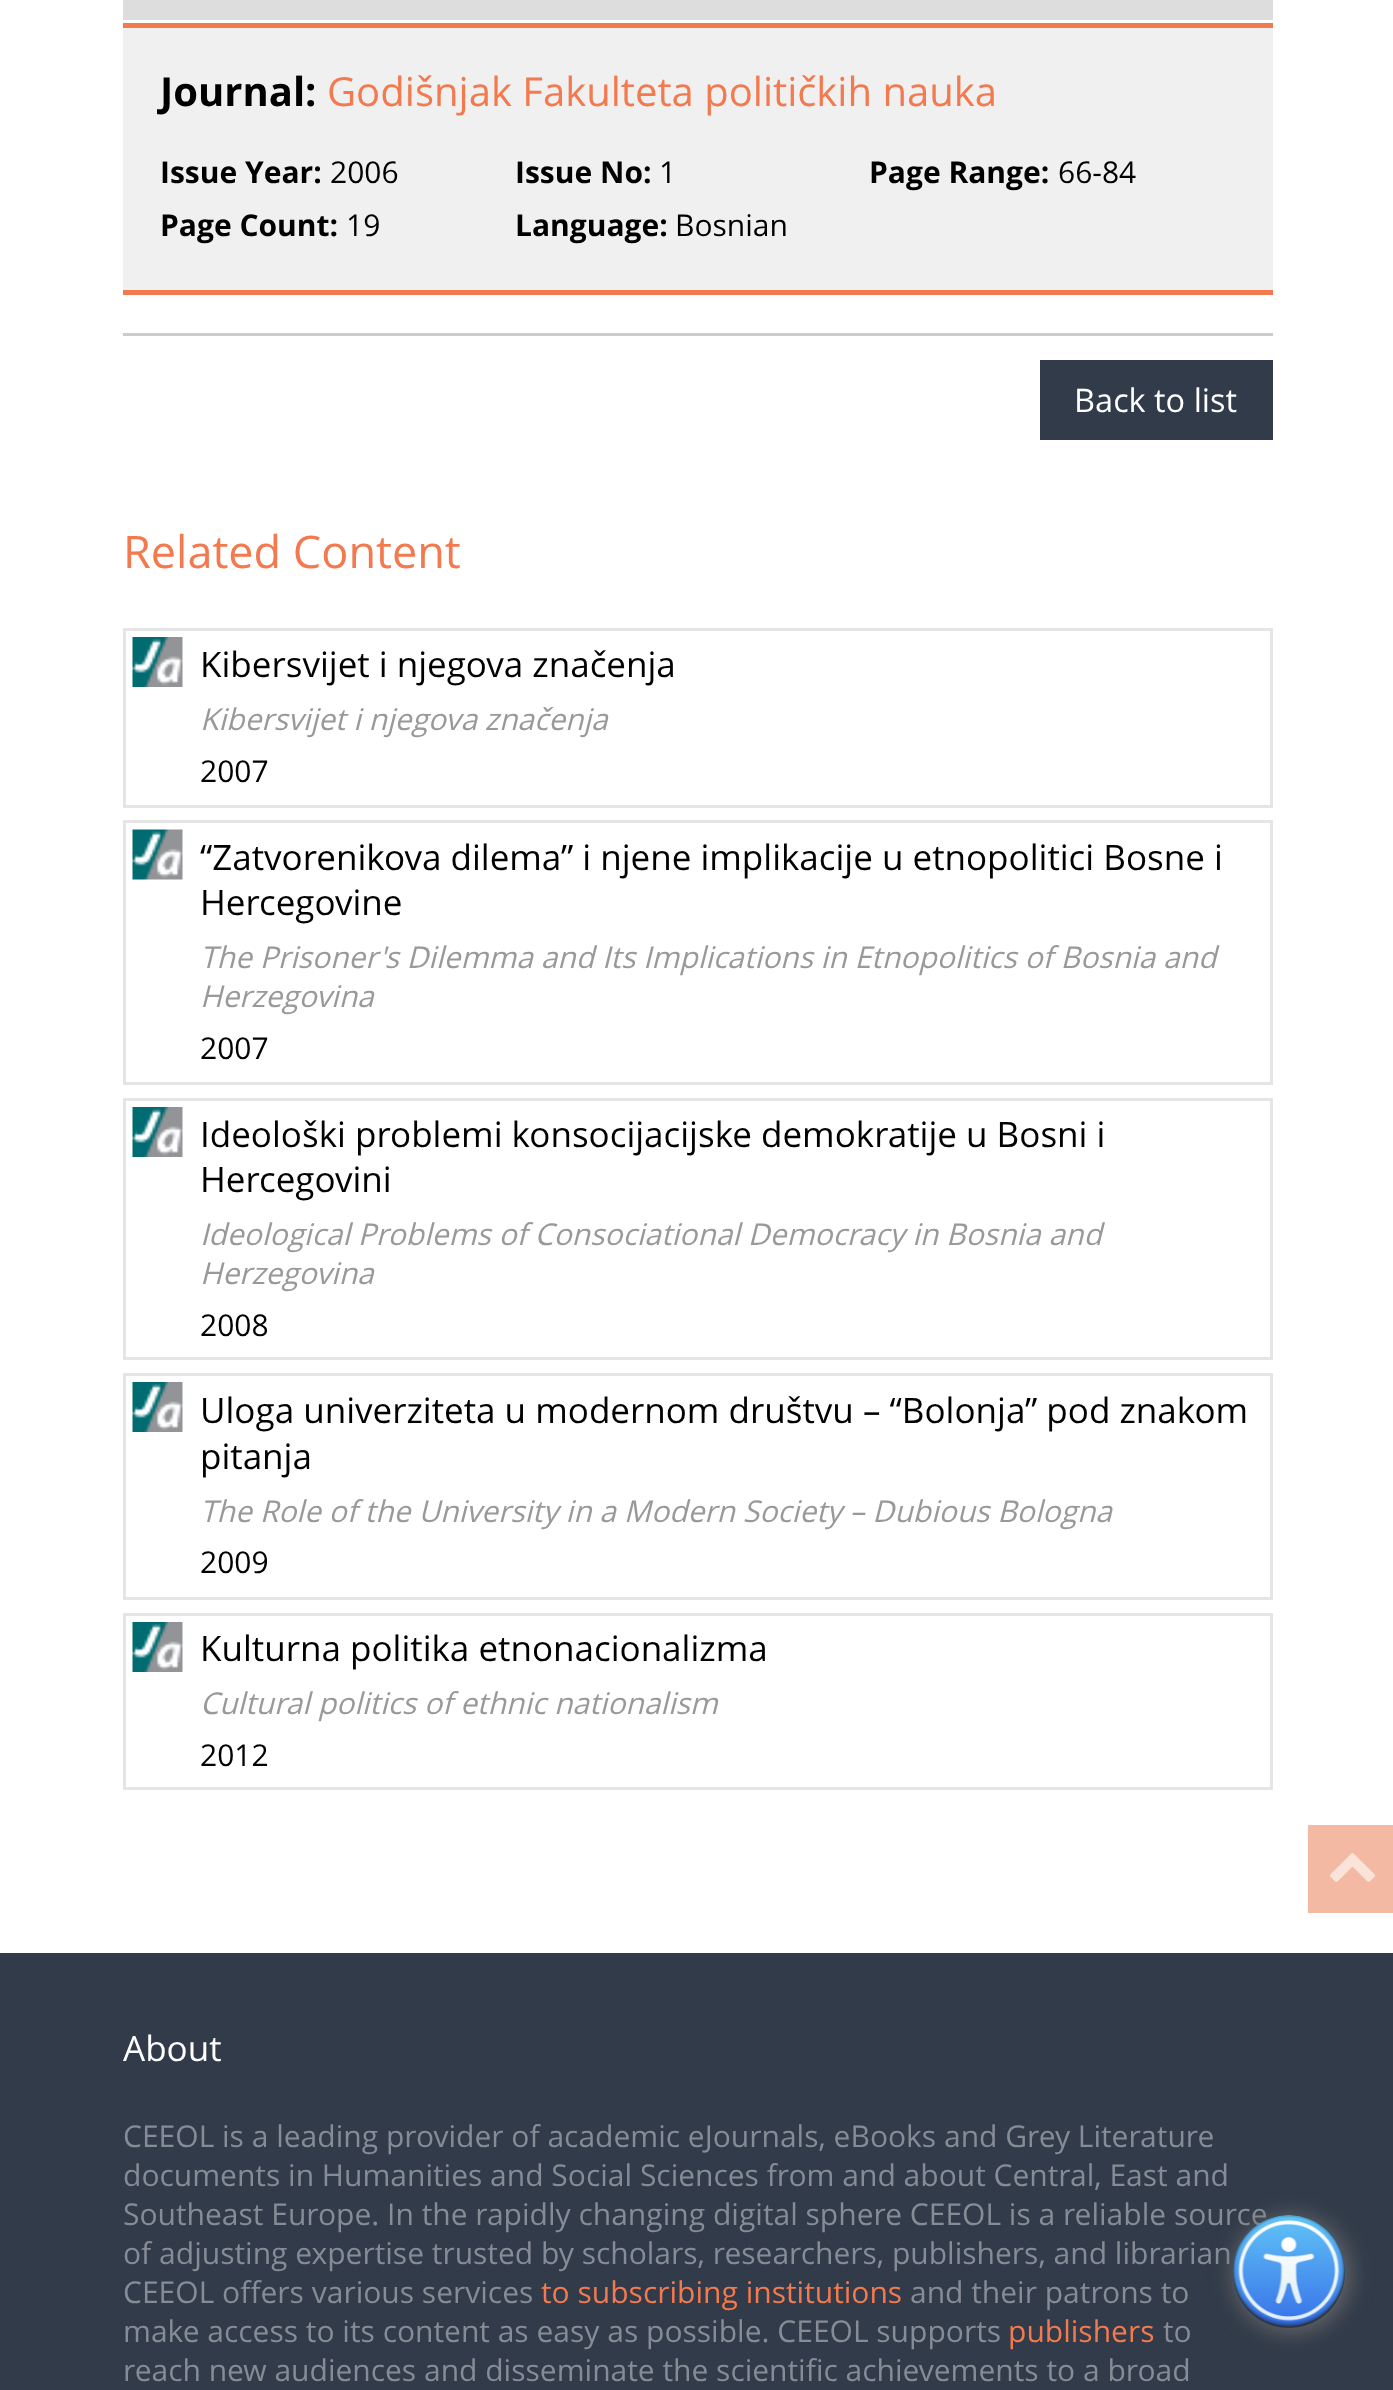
<svg xmlns="http://www.w3.org/2000/svg" width="1393" height="2390" viewBox="0 0 1393 2390">
  <defs>
    <clipPath id="clip1"><path d="M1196 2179H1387V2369H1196ZM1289 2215C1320 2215 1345 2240 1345 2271V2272C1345 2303 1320 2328 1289 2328C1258 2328 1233 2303 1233 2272V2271C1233 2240 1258 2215 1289 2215Z" clip-rule="evenodd"/></clipPath>
  </defs>
  <rect width="100%" height="100%" fill="rgb(255,255,255)"/>
  <rect x="123" y="0" width="1150" height="20" fill="rgb(221,221,221)"/>
  <rect x="123" y="28" width="1150" height="262" fill="rgb(240,240,240)"/>
  <rect x="123" y="23" width="1150" height="5" fill="rgb(243,121,78)"/>
  <rect x="123" y="290" width="1150" height="5" fill="rgb(243,121,78)"/>
  <text x="160" y="106" font-family="Open Sans" font-size="40" font-weight="bold" fill="rgb(0,0,0)">Journal:</text>
  <text x="327" y="106" font-family="Open Sans" font-size="40" fill="rgb(243,121,78)">Godišnjak Fakulteta političkih nauka</text>
  <text x="160" y="183" font-family="Open Sans" font-size="30" font-weight="bold" fill="rgb(0,0,0)">Issue Year:</text>
  <text x="330" y="183" font-family="Open Sans" font-size="30" fill="rgb(0,0,0)">2006</text>
  <text x="515" y="183" font-family="Open Sans" font-size="30" font-weight="bold" fill="rgb(0,0,0)">Issue No:</text>
  <text x="659" y="183" font-family="Open Sans" font-size="30" fill="rgb(0,0,0)">1</text>
  <text x="869" y="183" font-family="Open Sans" font-size="30" font-weight="bold" fill="rgb(0,0,0)">Page Range:</text>
  <text x="1058" y="183" font-family="Open Sans" font-size="30" fill="rgb(0,0,0)">66-84</text>
  <text x="160" y="236" font-family="Open Sans" font-size="30" font-weight="bold" fill="rgb(0,0,0)">Page Count:</text>
  <text x="346" y="236" font-family="Open Sans" font-size="30" fill="rgb(0,0,0)">19</text>
  <text x="515" y="236" font-family="Open Sans" font-size="30" font-weight="bold" fill="rgb(0,0,0)">Language:</text>
  <text x="675" y="236" font-family="Open Sans" font-size="30" fill="rgb(0,0,0)">Bosnian</text>
  <rect x="123" y="333" width="1150" height="3" fill="rgb(204,204,204)"/>
  <rect x="1040" y="360" width="233" height="80" fill="rgb(49,59,73)"/>
  <text x="1074" y="412" font-family="Open Sans" font-size="32.5" fill="rgb(255,255,255)">Back to list</text>
  <text x="123" y="568" font-family="Open Sans" font-size="45" fill="rgb(243,121,78)">Related Content</text>
  <rect x="124.5" y="629.5" width="1147" height="177" fill="none" stroke="rgb(229,229,229)" stroke-width="3"/>
  <image x="132" y="637" width="51" height="50" href="pic1.png"/>
  <text x="200" y="677" font-family="Open Sans" font-size="35" fill="rgb(0,0,0)">Kibersvijet i njegova značenja</text>
  <text x="200" y="730" font-family="Open Sans" font-size="30" font-style="italic" fill="rgb(153,153,153)">Kibersvijet i njegova značenja</text>
  <text x="200" y="782" font-family="Open Sans" font-size="30" fill="rgb(0,0,0)">2007</text>
  <rect x="124.5" y="821.5" width="1147" height="262" fill="none" stroke="rgb(229,229,229)" stroke-width="3"/>
  <image x="132" y="829" width="51" height="51" href="pic2.png"/>
  <g font-family="Open Sans" font-size="35" fill="rgb(0,0,0)">
    <text>
      <tspan x="200" y="870">“Zatvorenikova dilema” i njene implikacije u etnopolitici Bosne i</tspan>
      <tspan x="200" y="915">Hercegovine</tspan>
    </text>
  </g>
  <g font-family="Open Sans" font-size="30" font-style="italic" fill="rgb(153,153,153)">
    <text>
      <tspan x="200" y="968">The Prisoner's Dilemma and Its Implications in Etnopolitics of Bosnia and</tspan>
      <tspan x="200" y="1007">Herzegovina</tspan>
    </text>
  </g>
  <text x="200" y="1059" font-family="Open Sans" font-size="30" fill="rgb(0,0,0)">2007</text>
  <rect x="124.5" y="1099.5" width="1147" height="259" fill="none" stroke="rgb(229,229,229)" stroke-width="3"/>
  <image x="132" y="1107" width="51" height="50" href="pic1.png"/>
  <g font-family="Open Sans" font-size="35" fill="rgb(0,0,0)">
    <text>
      <tspan x="200" y="1147">Ideološki problemi konsocijacijske demokratije u Bosni i</tspan>
      <tspan x="200" y="1192">Hercegovini</tspan>
    </text>
  </g>
  <g font-family="Open Sans" font-size="30" font-style="italic" fill="rgb(153,153,153)">
    <text>
      <tspan x="200" y="1245">Ideological Problems of Consociational Democracy in Bosnia and</tspan>
      <tspan x="200" y="1284">Herzegovina</tspan>
    </text>
  </g>
  <text x="200" y="1336" font-family="Open Sans" font-size="30" fill="rgb(0,0,0)">2008</text>
  <rect x="124.5" y="1374.5" width="1147" height="224" fill="none" stroke="rgb(229,229,229)" stroke-width="3"/>
  <image x="132" y="1382" width="51" height="50" href="pic1.png"/>
  <g font-family="Open Sans" font-size="35" fill="rgb(0,0,0)">
    <text>
      <tspan x="200" y="1423">Uloga univerziteta u modernom društvu – “Bolonja” pod znakom</tspan>
      <tspan x="200" y="1469">pitanja</tspan>
    </text>
  </g>
  <text x="200" y="1522" font-family="Open Sans" font-size="30" font-style="italic" fill="rgb(153,153,153)">The Role of the University in a Modern Society – Dubious Bologna</text>
  <text x="200" y="1573" font-family="Open Sans" font-size="30" fill="rgb(0,0,0)">2009</text>
  <rect x="124.5" y="1614.5" width="1147" height="174" fill="none" stroke="rgb(229,229,229)" stroke-width="3"/>
  <image x="132" y="1622" width="51" height="50" href="pic1.png"/>
  <text x="200" y="1661" font-family="Open Sans" font-size="35" fill="rgb(0,0,0)">Kulturna politika etnonacionalizma</text>
  <text x="200" y="1714" font-family="Open Sans" font-size="30" font-style="italic" fill="rgb(153,153,153)">Cultural politics of ethnic nationalism</text>
  <text x="200" y="1766" font-family="Open Sans" font-size="30" fill="rgb(0,0,0)">2012</text>
  <rect x="1308" y="1825" width="85" height="88" fill="rgb(244,185,163)"/>
  <image x="1330" y="1853" width="45" height="29" href="pic3.png"/>
  <rect x="0" y="1953" width="1393" height="437" fill="rgb(49,59,73)"/>
  <text x="123" y="2061" font-family="Open Sans" font-size="35" fill="rgb(255,255,255)">About</text>
  <g font-family="Open Sans" font-size="30" fill="rgb(134,140,149)">
    <text>
      <tspan x="123" y="2147">CEEOL is a leading provider of academic eJournals, eBooks and Grey Literature</tspan>
      <tspan x="123" y="2186">documents in Humanities and Social Sciences from and about Central, East and</tspan>
      <tspan x="123" y="2225">Southeast Europe. In the rapidly changing digital sphere CEEOL is a reliable source</tspan>
      <tspan x="123" y="2264">of adjusting expertise trusted by scholars, researchers, publishers, and librarian</tspan>
      <tspan x="123" y="2303">CEEOL offers various services</tspan>
    </text>
  </g>
  <text x="541" y="2303" font-family="Open Sans" font-size="30" fill="rgb(243,121,78)">to subscribing institutions</text>
  <g font-family="Open Sans" font-size="30" fill="rgb(134,140,149)">
    <text x="910" y="2303">and their patrons to</text>
    <text x="123" y="2342">make access to its content as easy as possible. CEEOL supports</text>
  </g>
  <text x="1008" y="2342" font-family="Open Sans" font-size="30" fill="rgb(243,121,78)">publishers</text>
  <g font-family="Open Sans" font-size="30" fill="rgb(134,140,149)">
    <text x="1163" y="2342">to</text>
    <text x="123" y="2381">reach new audiences and disseminate the scientific achievements to a broad</text>
  </g>
  <g clip-path="url(#clip1)">
    <rect x="1235" y="2218" width="113" height="112" rx="56" fill="rgb(113,112,112)" filter="blur(12.5px)"/>
  </g>
  <image x="1233" y="2215" width="112" height="112" href="pic4.png"/>
</svg>
